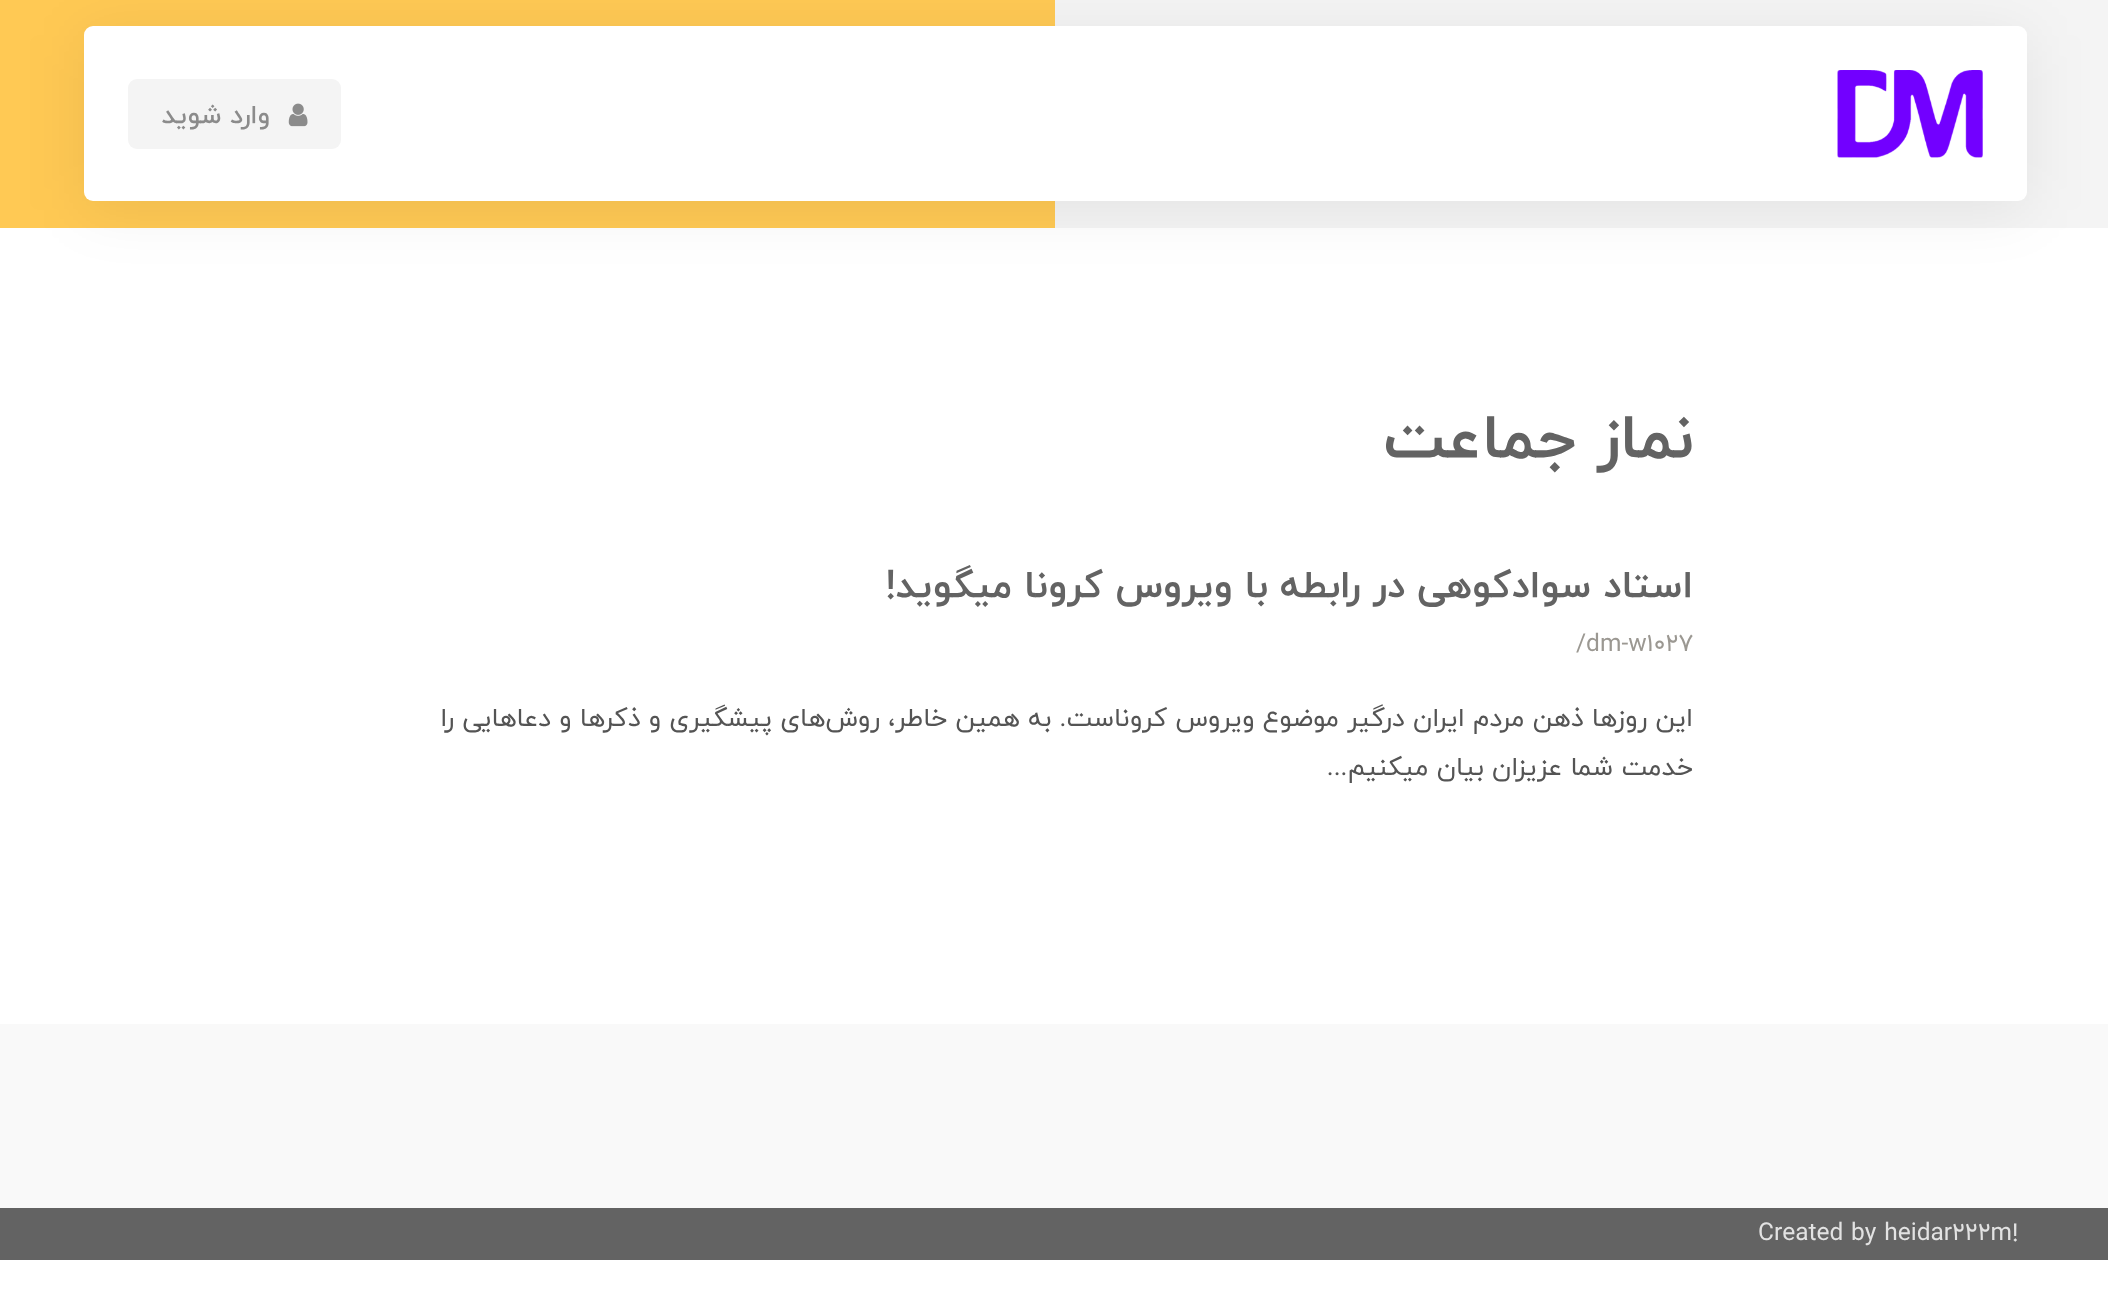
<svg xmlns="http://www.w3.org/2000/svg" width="2108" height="1296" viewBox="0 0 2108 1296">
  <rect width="100%" height="100%" fill="rgb(255,255,255)"/>
  <rect x="0" y="0" width="1055" height="228" fill="rgb(255,201,84)"/>
  <rect x="1055" y="0" width="1053" height="228" fill="rgb(244,244,244)"/>
  <rect x="84" y="35" width="1943" height="175" rx="9" fill="rgba(0,0,0,0.07)" filter="blur(30.5px)"/>
  <rect x="84" y="26" width="1943" height="175" rx="9" fill="rgb(255,255,255)"/>
  <image x="1837" y="70" width="146" height="88" href="pic1.png"/>
  <rect x="128" y="79" width="213" height="70" rx="9" fill="rgb(244,244,244)"/>
  <image x="288" y="103" width="20" height="24" href="pic2.png"/>
  <text x="270" y="123" font-family="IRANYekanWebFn" font-size="26.25" font-weight="500" direction="rtl" fill="rgb(139,139,139)">وارد شوید</text>
  <text x="1693" y="457" font-family="IRANYekanWebFn" font-size="63" font-weight="bold" direction="rtl" fill="rgb(99,99,99)">نماز جماعت</text>
  <text x="1693" y="597" font-family="IRANYekanWebFn" font-size="38.5" font-weight="bold" direction="rtl" fill="rgb(99,99,99)">استاد سوادکوهی در رابطه با ویروس کرونا میگوید!</text>
  <text x="1576" y="651" font-family="IRANYekanWebFn" font-size="24.5" fill="rgb(155,152,146)">/dm-w1027</text>
  <g font-family="IRANYekanWebFn" font-size="26.25" direction="rtl" fill="rgb(84,84,84)">
    <text>
      <tspan x="1693" y="726">این روزها ذهن مردم ایران درگیر موضوع ویروس کروناست. به همین خاطر، روش‌های پیشگیری و ذکرها و دعاهایی را</tspan>
      <tspan x="1693" y="775">خدمت شما عزیزان بیان میکنیم...</tspan>
    </text>
  </g>
  <rect x="0" y="1024" width="2108" height="184" fill="rgb(249,249,249)"/>
  <rect x="0" y="1208" width="2108" height="52" fill="rgb(99,99,99)"/>
  <text x="1758" y="1240" font-family="IRANYekanWebFn" font-size="24.5" fill="rgb(226,226,226)">Created by heidar222m!</text>
</svg>
